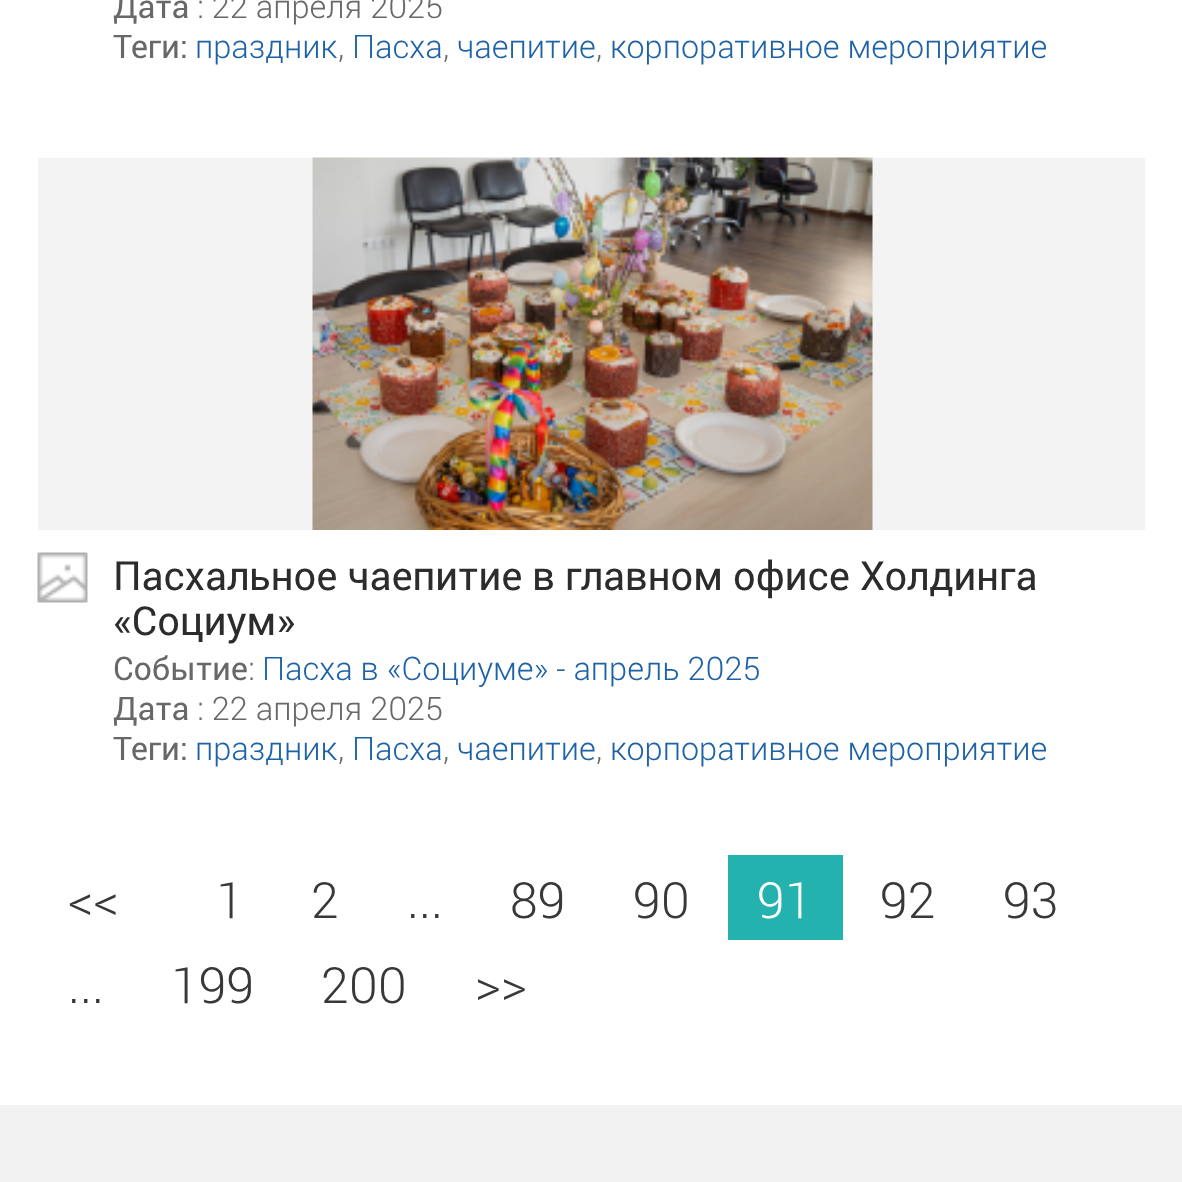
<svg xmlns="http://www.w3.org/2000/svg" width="1182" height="1182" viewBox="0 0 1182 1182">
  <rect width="100%" height="100%" fill="rgb(255,255,255)"/>
  <text x="113" y="18" font-family="Roboto" font-size="32.5" fill="rgb(104,104,104)">Дата</text>
  <text x="197" y="18" font-family="Roboto" font-size="32.5" font-weight="300" fill="rgb(104,104,104)">: 22 апреля 2025</text>
  <text x="113" y="58" font-family="Roboto" font-size="32.5" fill="rgb(104,104,104)">Теги:</text>
  <text x="195" y="58" font-family="Roboto" font-size="32.5" font-weight="300" fill="rgb(29,98,167)">праздник</text>
  <text x="338" y="58" font-family="Roboto" font-size="32.5" font-weight="300" fill="rgb(104,104,104)">,</text>
  <text x="352" y="58" font-family="Roboto" font-size="32.5" font-weight="300" fill="rgb(29,98,167)">Пасха</text>
  <text x="443" y="58" font-family="Roboto" font-size="32.5" font-weight="300" fill="rgb(104,104,104)">,</text>
  <text x="457" y="58" font-family="Roboto" font-size="32.5" font-weight="300" fill="rgb(29,98,167)">чаепитие</text>
  <text x="596" y="58" font-family="Roboto" font-size="32.5" font-weight="300" fill="rgb(104,104,104)">,</text>
  <text x="610" y="58" font-family="Roboto" font-size="32.5" font-weight="300" fill="rgb(29,98,167)">корпоративное мероприятие</text>
  <rect x="38" y="158" width="1107" height="372" fill="rgb(243,243,243)"/>
  <image x="312" y="157" width="561" height="373" href="pic1.png"/>
  <image x="37" y="552" width="51" height="51" href="pic2.png"/>
  <g font-family="Roboto" font-size="40" fill="rgb(44,44,44)">
    <text>
      <tspan x="113" y="590">Пасхальное чаепитие в главном офисе Холдинга</tspan>
      <tspan x="113" y="635">«Социум»</tspan>
    </text>
  </g>
  <text x="113" y="680" font-family="Roboto" font-size="32.5" fill="rgb(104,104,104)">Событие</text>
  <text x="248" y="680" font-family="Roboto" font-size="32.5" font-weight="300" fill="rgb(104,104,104)">:</text>
  <text x="262" y="680" font-family="Roboto" font-size="32.5" font-weight="300" fill="rgb(29,98,167)">Пасха в «Социуме» - апрель 2025</text>
  <text x="113" y="720" font-family="Roboto" font-size="32.5" fill="rgb(104,104,104)">Дата</text>
  <text x="197" y="720" font-family="Roboto" font-size="32.5" font-weight="300" fill="rgb(104,104,104)">: 22 апреля 2025</text>
  <text x="113" y="760" font-family="Roboto" font-size="32.5" fill="rgb(104,104,104)">Теги:</text>
  <text x="195" y="760" font-family="Roboto" font-size="32.5" font-weight="300" fill="rgb(29,98,167)">праздник</text>
  <text x="338" y="760" font-family="Roboto" font-size="32.5" font-weight="300" fill="rgb(104,104,104)">,</text>
  <text x="352" y="760" font-family="Roboto" font-size="32.5" font-weight="300" fill="rgb(29,98,167)">Пасха</text>
  <text x="443" y="760" font-family="Roboto" font-size="32.5" font-weight="300" fill="rgb(104,104,104)">,</text>
  <text x="457" y="760" font-family="Roboto" font-size="32.5" font-weight="300" fill="rgb(29,98,167)">чаепитие</text>
  <text x="596" y="760" font-family="Roboto" font-size="32.5" font-weight="300" fill="rgb(104,104,104)">,</text>
  <text x="610" y="760" font-family="Roboto" font-size="32.5" font-weight="300" fill="rgb(29,98,167)">корпоративное мероприятие</text>
  <g font-family="Roboto" font-size="50" font-weight="300" fill="rgb(56,56,56)">
    <text x="68" y="918">&lt;&lt;</text>
    <text x="216" y="918">1</text>
    <text x="311" y="918">2</text>
    <text x="510" y="918">89</text>
    <text x="633" y="918">90</text>
  </g>
  <rect x="728" y="855" width="115" height="85" fill="rgb(35,178,174)"/>
  <text x="757" y="918" font-family="Roboto" font-size="50" font-weight="300" fill="rgb(255,255,255)">91</text>
  <g font-family="Roboto" font-size="50" font-weight="300" fill="rgb(56,56,56)">
    <text x="880" y="918">92</text>
    <text x="1003" y="918">93</text>
    <text x="407" y="918">...</text>
    <text x="171" y="1003">199</text>
    <text x="321" y="1003">200</text>
    <text x="475" y="1003">&gt;&gt;</text>
    <text x="68" y="1003">...</text>
  </g>
  <rect x="0" y="1105" width="1182" height="77" fill="rgb(242,242,242)"/>
</svg>
